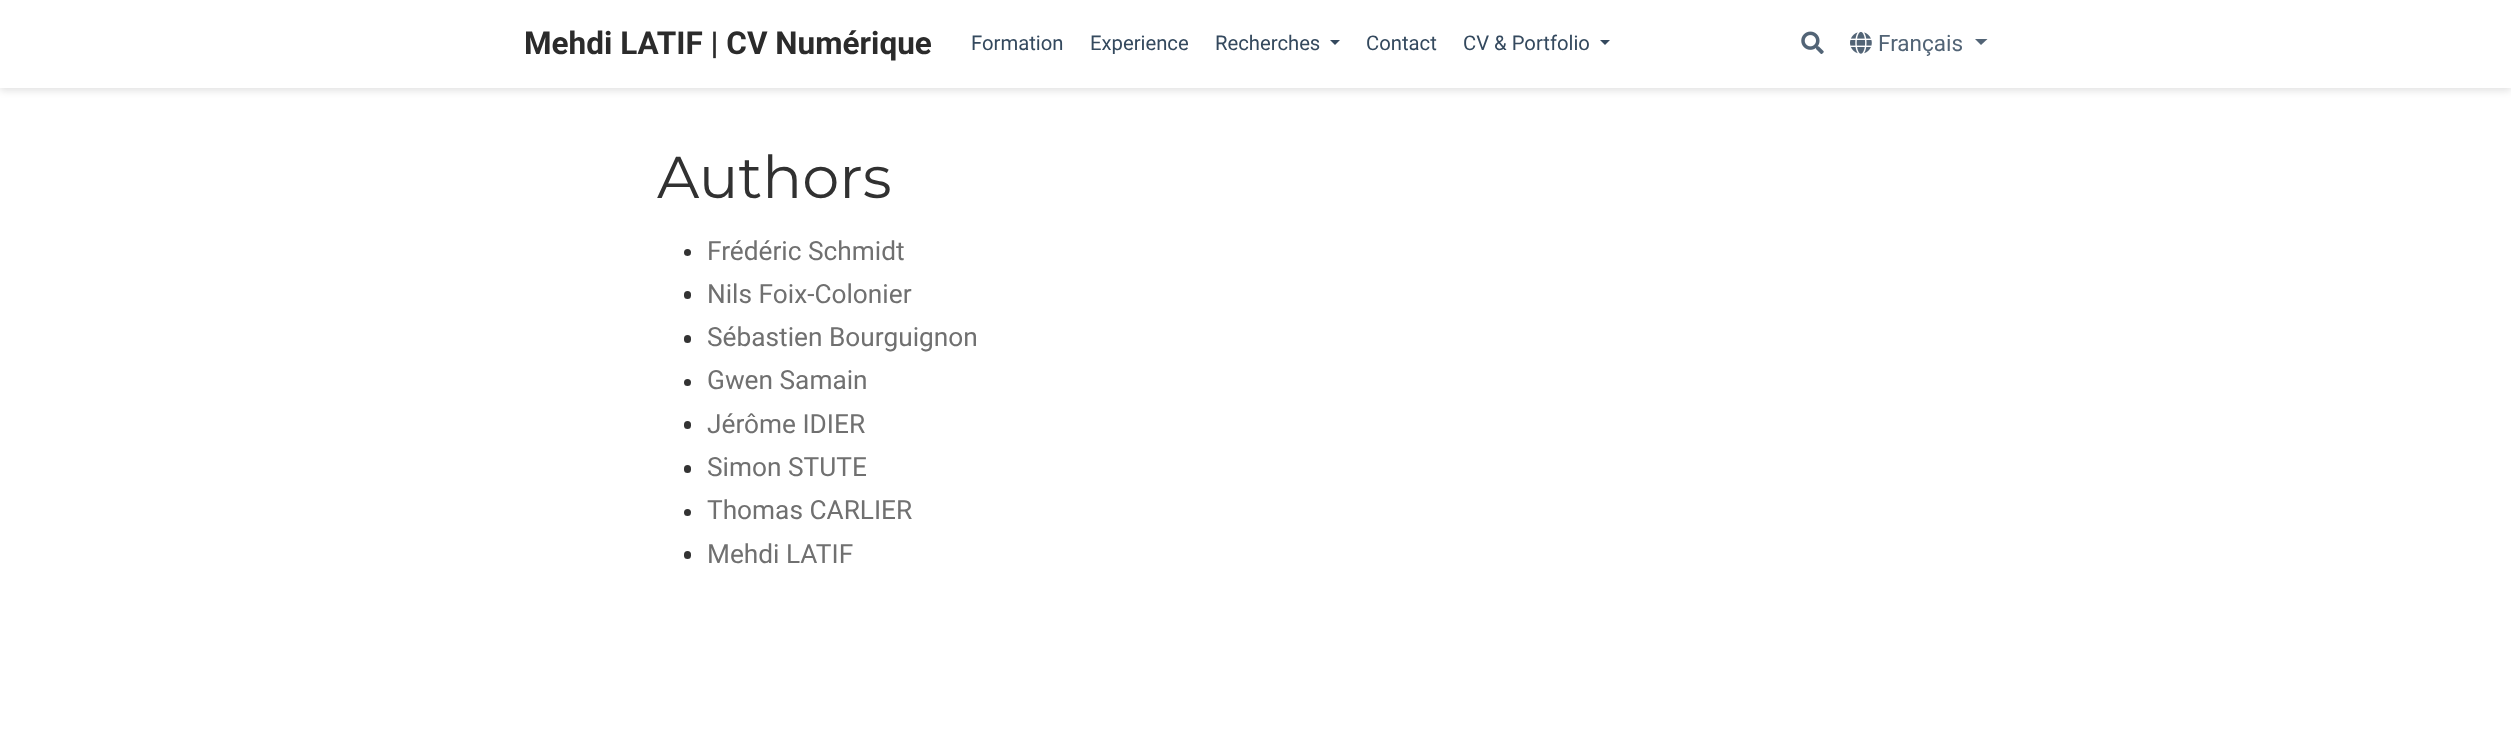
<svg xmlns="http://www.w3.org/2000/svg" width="2511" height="740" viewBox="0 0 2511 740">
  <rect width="100%" height="100%" fill="rgb(255,255,255)"/>
  <rect x="0" y="4" width="2511" height="87" fill="rgba(0,0,0,0.11)" filter="blur(3.5px)"/>
  <rect x="0" y="0" width="2511" height="88" fill="rgb(255,255,255)"/>
  <text x="524" y="54" font-family="Roboto" font-size="31.5" font-weight="bold" fill="rgb(43,43,43)">Mehdi LATIF | CV Numérique</text>
  <g font-family="Roboto" font-size="20.25" fill="rgb(52,73,94)">
    <text x="971" y="50">Formation</text>
    <text x="1090" y="50">Experience</text>
    <text x="1215" y="50">Recherches</text>
  </g>
  <path d="M1330 40H1340L1335 45Z" fill="rgb(52,73,94)"/>
  <g font-family="Roboto" font-size="20.25" fill="rgb(52,73,94)">
    <text x="1366" y="50">Contact</text>
    <text x="1463" y="50">CV &amp; Portfolio</text>
  </g>
  <path d="M1600 40H1610L1605 45Z" fill="rgb(52,73,94)"/>
  <image x="1801" y="31" width="23" height="23" href="pic1.png"/>
  <image x="1850" y="31" width="22" height="23" href="pic2.png"/>
  <text x="1878" y="51" font-family="Roboto" font-size="22.5" fill="rgb(82,100,118)">Français</text>
  <path d="M1975 39H1987.5L1981 45Z" fill="rgb(82,100,118)"/>
  <text x="657" y="198" font-family="Montserrat" font-size="59" fill="rgb(49,49,49)">Authors</text>
  <circle cx="687.5" cy="252.5" r="3.5" fill="rgb(51,51,51)"/>
  <text x="707" y="260" font-family="Roboto" font-size="26.25" fill="rgb(112,112,112)">Frédéric Schmidt</text>
  <rect x="684" y="291" width="7" height="8" rx="3.5" fill="rgb(51,51,51)"/>
  <text x="707" y="303" font-family="Roboto" font-size="26.25" fill="rgb(112,112,112)">Nils Foix-Colonier</text>
  <rect x="684" y="335" width="7" height="8" rx="3.5" fill="rgb(51,51,51)"/>
  <text x="707" y="346" font-family="Roboto" font-size="26.25" fill="rgb(112,112,112)">Sébastien Bourguignon</text>
  <circle cx="687.5" cy="382.5" r="3.5" fill="rgb(51,51,51)"/>
  <text x="707" y="389" font-family="Roboto" font-size="26.25" fill="rgb(112,112,112)">Gwen Samain</text>
  <rect x="684" y="421" width="7" height="8" rx="3.5" fill="rgb(51,51,51)"/>
  <text x="707" y="433" font-family="Roboto" font-size="26.25" fill="rgb(112,112,112)">Jérôme IDIER</text>
  <rect x="684" y="465" width="7" height="8" rx="3.5" fill="rgb(51,51,51)"/>
  <text x="707" y="476" font-family="Roboto" font-size="26.25" fill="rgb(112,112,112)">Simon STUTE</text>
  <circle cx="687.5" cy="512.5" r="3.5" fill="rgb(51,51,51)"/>
  <text x="707" y="519" font-family="Roboto" font-size="26.25" fill="rgb(112,112,112)">Thomas CARLIER</text>
  <rect x="684" y="551" width="7" height="8" rx="3.5" fill="rgb(51,51,51)"/>
  <text x="707" y="563" font-family="Roboto" font-size="26.25" fill="rgb(112,112,112)">Mehdi LATIF</text>
</svg>
